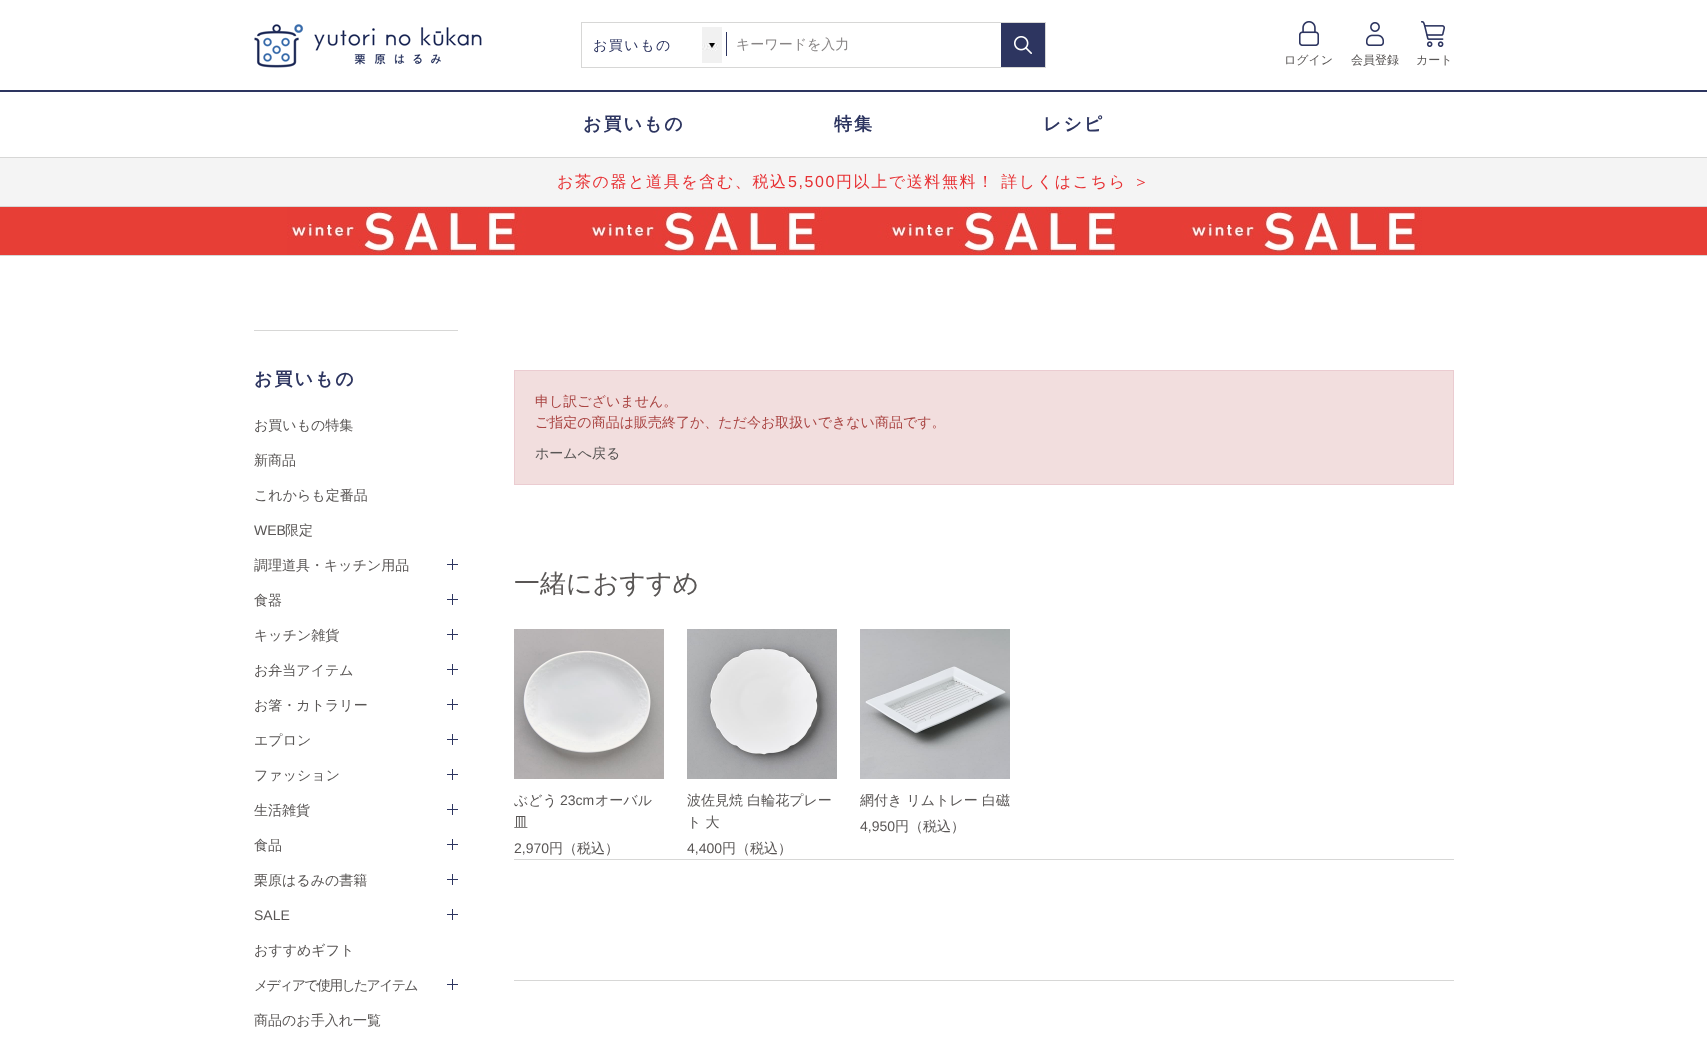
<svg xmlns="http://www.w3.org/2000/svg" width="1707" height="1051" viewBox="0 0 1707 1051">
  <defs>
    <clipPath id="clip1"><rect x="860" y="789" width="150" height="22"/></clipPath>
  </defs>
  <rect width="100%" height="100%" fill="rgb(255,255,255)"/>
  <rect x="0" y="90" width="1707" height="2" fill="rgb(45,53,96)"/>
  <image x="254" y="24" width="228" height="44" href="pic1.png"/>
  <rect x="581.5" y="22.5" width="464" height="45" fill="none" stroke="rgb(215,215,214)"/>
  <image x="702" y="27" width="20" height="36" href="pic2.png"/>
  <text x="593" y="50" font-family="WenQuanYi Zen Hei" font-size="14" font-weight="500" letter-spacing="1.5" fill="rgb(45,53,96)">お買いもの</text>
  <rect x="726" y="32" width="1" height="24" fill="rgb(45,53,96)"/>
  <text x="736" y="49" font-family="WenQuanYi Zen Hei" font-size="14" font-weight="500" fill="rgb(136,133,133)">キーワードを入力</text>
  <rect x="1001" y="23" width="44" height="44" fill="rgb(45,53,96)"/>
  <image x="1014" y="36" width="18" height="18" href="pic3.png"/>
  <image x="1299" y="21" width="20" height="25" href="pic4.png"/>
  <text x="1284" y="64" font-family="WenQuanYi Zen Hei" font-size="12" font-weight="500" fill="rgb(89,86,85)">ログイン</text>
  <image x="1366" y="22" width="18" height="24" href="pic5.png"/>
  <text x="1351" y="64" font-family="WenQuanYi Zen Hei" font-size="12" font-weight="500" fill="rgb(89,86,85)">会員登録</text>
  <image x="1421" y="21" width="24" height="26" href="pic6.png"/>
  <text x="1416" y="64" font-family="WenQuanYi Zen Hei" font-size="12" font-weight="500" fill="rgb(89,86,85)">カート</text>
  <rect x="0" y="255" width="1707" height="1" fill="rgb(215,215,214)"/>
  <g font-family="WenQuanYi Zen Hei" font-size="18" font-weight="bold" letter-spacing="2" fill="rgb(45,53,96)">
    <text x="583" y="130">お買いもの</text>
    <text x="834" y="130">特集</text>
    <text x="1043" y="130">レシピ</text>
  </g>
  <rect x="0" y="158" width="1707" height="48" fill="rgb(244,244,244)"/>
  <rect x="0" y="157" width="1707" height="1" fill="rgb(215,215,214)"/>
  <text x="557" y="187" font-family="WenQuanYi Zen Hei" font-size="16" font-weight="500" letter-spacing="1.6" fill="rgb(231,49,52)">お茶の器と道具を含む、税込</text>
  <text x="788" y="187" font-family="Liberation Sans" font-size="16" letter-spacing="1.6" fill="rgb(231,49,52)">5,500</text>
  <text x="836" y="187" font-family="WenQuanYi Zen Hei" font-size="16" font-weight="500" letter-spacing="1.6" fill="rgb(231,49,52)">円以上で送料無料！ 詳しくはこちら ＞</text>
  <rect x="0" y="207" width="1707" height="48" fill="rgb(231,62,54)"/>
  <rect x="0" y="206" width="1707" height="1" fill="rgb(215,215,214)"/>
  <image x="287" y="207" width="1135" height="48" href="pic7.png"/>
  <rect x="254" y="330" width="204" height="1" fill="rgb(215,215,214)"/>
  <text x="254" y="385" font-family="WenQuanYi Zen Hei" font-size="18" font-weight="bold" letter-spacing="2" fill="rgb(45,53,96)">お買いもの</text>
  <g font-family="WenQuanYi Zen Hei" font-size="14" font-weight="500" fill="rgb(89,86,85)">
    <text x="254" y="430">お買いもの特集</text>
    <text x="254" y="465">新商品</text>
    <text x="254" y="500">これからも定番品</text>
  </g>
  <text x="254" y="535" font-family="Liberation Sans" font-size="14" fill="rgb(89,86,85)">WEB</text>
  <g font-family="WenQuanYi Zen Hei" font-size="14" font-weight="500" fill="rgb(89,86,85)">
    <text x="285" y="535">限定</text>
    <text x="254" y="570">調理道具・キッチン用品</text>
  </g>
  <rect x="447" y="564" width="11" height="1" fill="rgb(45,53,96)"/>
  <rect x="452" y="559" width="1" height="11" fill="rgb(45,53,96)"/>
  <text x="254" y="605" font-family="WenQuanYi Zen Hei" font-size="14" font-weight="500" fill="rgb(89,86,85)">食器</text>
  <rect x="447" y="599" width="11" height="1" fill="rgb(45,53,96)"/>
  <rect x="452" y="594" width="1" height="11" fill="rgb(45,53,96)"/>
  <text x="254" y="640" font-family="WenQuanYi Zen Hei" font-size="14" font-weight="500" fill="rgb(89,86,85)">キッチン雑貨</text>
  <rect x="447" y="634" width="11" height="1" fill="rgb(45,53,96)"/>
  <rect x="452" y="629" width="1" height="11" fill="rgb(45,53,96)"/>
  <text x="254" y="675" font-family="WenQuanYi Zen Hei" font-size="14" font-weight="500" fill="rgb(89,86,85)">お弁当アイテム</text>
  <rect x="447" y="669" width="11" height="1" fill="rgb(45,53,96)"/>
  <rect x="452" y="664" width="1" height="11" fill="rgb(45,53,96)"/>
  <text x="254" y="710" font-family="WenQuanYi Zen Hei" font-size="14" font-weight="500" fill="rgb(89,86,85)">お箸・カトラリー</text>
  <rect x="447" y="704" width="11" height="1" fill="rgb(45,53,96)"/>
  <rect x="452" y="699" width="1" height="11" fill="rgb(45,53,96)"/>
  <text x="254" y="745" font-family="WenQuanYi Zen Hei" font-size="14" font-weight="500" fill="rgb(89,86,85)">エプロン</text>
  <rect x="447" y="739" width="11" height="1" fill="rgb(45,53,96)"/>
  <rect x="452" y="734" width="1" height="11" fill="rgb(45,53,96)"/>
  <text x="254" y="780" font-family="WenQuanYi Zen Hei" font-size="14" font-weight="500" fill="rgb(89,86,85)">ファッション</text>
  <rect x="447" y="774" width="11" height="1" fill="rgb(45,53,96)"/>
  <rect x="452" y="769" width="1" height="11" fill="rgb(45,53,96)"/>
  <text x="254" y="815" font-family="WenQuanYi Zen Hei" font-size="14" font-weight="500" fill="rgb(89,86,85)">生活雑貨</text>
  <rect x="447" y="809" width="11" height="1" fill="rgb(45,53,96)"/>
  <rect x="452" y="804" width="1" height="11" fill="rgb(45,53,96)"/>
  <text x="254" y="850" font-family="WenQuanYi Zen Hei" font-size="14" font-weight="500" fill="rgb(89,86,85)">食品</text>
  <rect x="447" y="844" width="11" height="1" fill="rgb(45,53,96)"/>
  <rect x="452" y="839" width="1" height="11" fill="rgb(45,53,96)"/>
  <text x="254" y="885" font-family="WenQuanYi Zen Hei" font-size="14" font-weight="500" fill="rgb(89,86,85)">栗原はるみの書籍</text>
  <rect x="447" y="879" width="11" height="1" fill="rgb(45,53,96)"/>
  <rect x="452" y="874" width="1" height="11" fill="rgb(45,53,96)"/>
  <text x="254" y="920" font-family="Liberation Sans" font-size="14" fill="rgb(89,86,85)">SALE</text>
  <rect x="447" y="914" width="11" height="1" fill="rgb(45,53,96)"/>
  <rect x="452" y="909" width="1" height="11" fill="rgb(45,53,96)"/>
  <text x="254" y="955" font-family="WenQuanYi Zen Hei" font-size="14" font-weight="500" fill="rgb(89,86,85)">おすすめギフト</text>
  <text x="254" y="990" font-family="WenQuanYi Zen Hei" font-size="14" font-weight="500" letter-spacing="-1.75" fill="rgb(89,86,85)">メディアで使用したアイテム</text>
  <rect x="447" y="984" width="11" height="1" fill="rgb(45,53,96)"/>
  <rect x="452" y="979" width="1" height="11" fill="rgb(45,53,96)"/>
  <text x="254" y="1025" font-family="WenQuanYi Zen Hei" font-size="14" font-weight="500" fill="rgb(89,86,85)">商品のお手入れ一覧</text>
  <rect x="514.5" y="370.5" width="939" height="114" fill="rgb(242,222,222)" stroke="rgb(235,204,209)"/>
  <g font-family="WenQuanYi Zen Hei" font-size="14" font-weight="500" fill="rgb(169,68,66)">
    <text>
      <tspan x="535" y="406">申し訳ございません。</tspan>
      <tspan x="535" y="427">ご指定の商品は販売終了か、ただ今お取扱いできない商品です。</tspan>
    </text>
  </g>
  <text x="535" y="458" font-family="WenQuanYi Zen Hei" font-size="14" font-weight="500" fill="rgb(89,86,85)">ホームへ戻る</text>
  <text x="514" y="592" font-family="WenQuanYi Zen Hei" font-size="26" font-weight="500" fill="rgb(89,86,85)">一緒におすすめ</text>
  <image x="514" y="629" width="150" height="150" href="pic8.png"/>
  <text x="514" y="805" font-family="WenQuanYi Zen Hei" font-size="14" font-weight="500" fill="rgb(89,86,85)">ぶどう</text>
  <text x="560" y="805" font-family="Liberation Sans" font-size="14" fill="rgb(89,86,85)">23cm</text>
  <g font-family="WenQuanYi Zen Hei" font-size="14" font-weight="500" fill="rgb(89,86,85)">
    <text x="595" y="805">オーバル</text>
    <text x="514" y="827">皿</text>
  </g>
  <text x="514" y="853" font-family="Liberation Sans" font-size="14" fill="rgb(89,86,85)">2,970</text>
  <text x="549" y="853" font-family="WenQuanYi Zen Hei" font-size="14" font-weight="500" fill="rgb(89,86,85)">円（税込）</text>
  <image x="687" y="629" width="150" height="150" href="pic9.png"/>
  <g font-family="WenQuanYi Zen Hei" font-size="14" font-weight="500" fill="rgb(89,86,85)">
    <text>
      <tspan x="687" y="805">波佐見焼 白輪花プレー</tspan>
      <tspan x="687" y="827">ト 大</tspan>
    </text>
  </g>
  <text x="687" y="853" font-family="Liberation Sans" font-size="14" fill="rgb(89,86,85)">4,400</text>
  <text x="722" y="853" font-family="WenQuanYi Zen Hei" font-size="14" font-weight="500" fill="rgb(89,86,85)">円（税込）</text>
  <image x="860" y="629" width="150" height="150" href="pic10.png"/>
  <g clip-path="url(#clip1)">
    <text x="860" y="805" font-family="WenQuanYi Zen Hei" font-size="14" font-weight="500" fill="rgb(89,86,85)">網付き リムトレー 白磁</text>
  </g>
  <text x="860" y="831" font-family="Liberation Sans" font-size="14" fill="rgb(89,86,85)">4,950</text>
  <text x="895" y="831" font-family="WenQuanYi Zen Hei" font-size="14" font-weight="500" fill="rgb(89,86,85)">円（税込）</text>
  <rect x="514" y="859" width="940" height="1" fill="rgb(215,215,214)"/>
  <rect x="514" y="980" width="940" height="1" fill="rgb(215,215,214)"/>
</svg>
